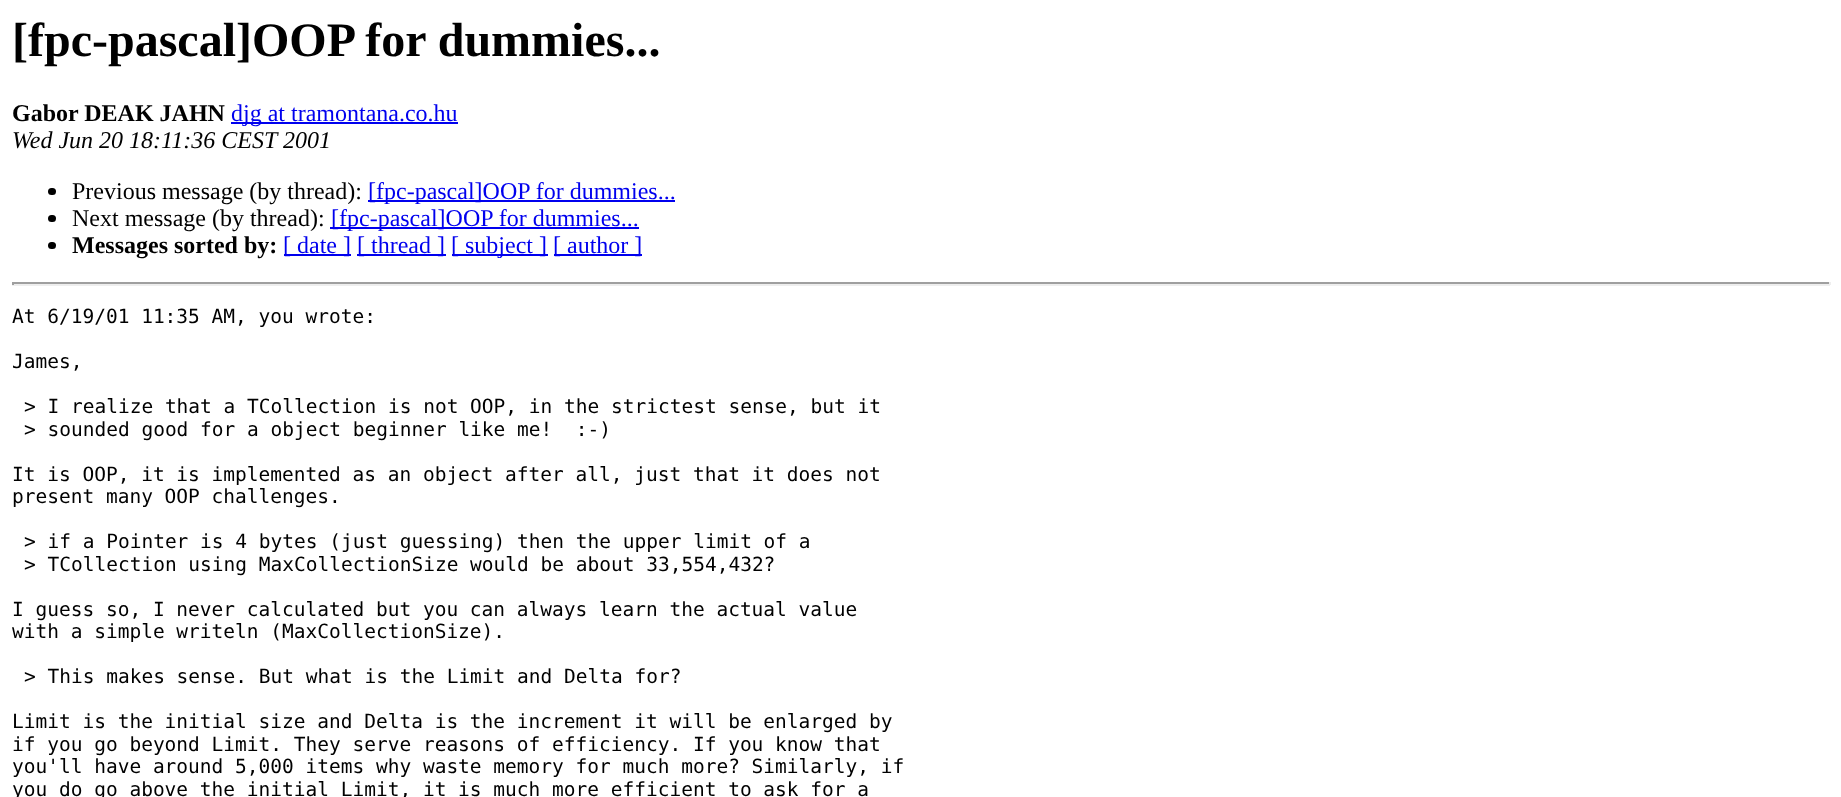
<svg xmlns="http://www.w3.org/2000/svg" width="1841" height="797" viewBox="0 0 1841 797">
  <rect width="100%" height="100%" fill="rgb(255,255,255)"/>
  <text x="12" y="56" font-family="Liberation Serif" font-size="48" font-weight="bold" fill="rgb(0,0,0)">[fpc-pascal]OOP for dummies...</text>
  <text x="12" y="121" font-family="Liberation Serif" font-size="24" font-weight="bold" fill="rgb(0,0,0)">Gabor DEAK JAHN</text>
  <rect x="231" y="122" width="227" height="2" fill="rgb(0,0,238)"/>
  <text x="231" y="121" font-family="Liberation Serif" font-size="24" fill="rgb(0,0,238)">djg at tramontana.co.hu</text>
  <text x="12" y="148" font-family="Liberation Serif" font-size="24" font-style="italic" fill="rgb(0,0,0)">Wed Jun 20 18:11:36 CEST 2001</text>
  <rect x="48" y="188" width="8" height="7" rx="3.5" fill="rgb(0,0,0)"/>
  <text x="72" y="199" font-family="Liberation Serif" font-size="24" fill="rgb(0,0,0)">Previous message (by thread):</text>
  <rect x="368" y="200" width="307" height="2" fill="rgb(0,0,238)"/>
  <text x="368" y="199" font-family="Liberation Serif" font-size="24" fill="rgb(0,0,238)">[fpc-pascal]OOP for dummies...</text>
  <rect x="48" y="215" width="8" height="7" rx="3.5" fill="rgb(0,0,0)"/>
  <text x="72" y="226" font-family="Liberation Serif" font-size="24" fill="rgb(0,0,0)">Next message (by thread):</text>
  <rect x="330" y="227" width="309" height="2" fill="rgb(0,0,238)"/>
  <text x="331" y="226" font-family="Liberation Serif" font-size="24" fill="rgb(0,0,238)">[fpc-pascal]OOP for dummies...</text>
  <rect x="48" y="242" width="8" height="7" rx="3.5" fill="rgb(0,0,0)"/>
  <text x="72" y="253" font-family="Liberation Serif" font-size="24" font-weight="bold" fill="rgb(0,0,0)">Messages sorted by:</text>
  <rect x="284" y="254" width="67" height="2" fill="rgb(0,0,238)"/>
  <text x="283" y="253" font-family="Liberation Serif" font-size="24" fill="rgb(0,0,238)">[ date ]</text>
  <rect x="357" y="254" width="89" height="2" fill="rgb(0,0,238)"/>
  <text x="357" y="253" font-family="Liberation Serif" font-size="24" fill="rgb(0,0,238)">[ thread ]</text>
  <rect x="452" y="254" width="96" height="2" fill="rgb(0,0,238)"/>
  <text x="451" y="253" font-family="Liberation Serif" font-size="24" fill="rgb(0,0,238)">[ subject ]</text>
  <rect x="554" y="254" width="88" height="2" fill="rgb(0,0,238)"/>
  <text x="553" y="253" font-family="Liberation Serif" font-size="24" fill="rgb(0,0,238)">[ author ]</text>
  <rect x="12" y="282" width="1818" height="2" fill="rgb(159,159,159)"/>
  <rect x="1829" y="282" width="2" height="3" fill="rgb(238,238,238)"/>
  <rect x="12" y="284" width="1818" height="2" fill="rgb(238,238,238)"/>
  <rect x="12" y="282" width="2" height="3" fill="rgb(159,159,159)"/>
  <g font-family="DejaVu Sans Mono" font-size="19.5" fill="rgb(0,0,0)">
    <text x="12" y="323">At 6/19/01 11:35 AM, you wrote:</text>
    <text x="12" y="368">James,</text>
    <text xml:space="preserve"><tspan x="24" y="413">&gt; I realize that a TCollection is not OOP, in the strictest sense, but it</tspan><tspan x="24" y="436">&gt; sounded good for a object beginner like me!  :-)</tspan></text>
    <text>
      <tspan x="12" y="481">It is OOP, it is implemented as an object after all, just that it does not</tspan>
      <tspan x="12" y="503">present many OOP challenges.</tspan>
    </text>
    <text>
      <tspan x="24" y="548">&gt; if a Pointer is 4 bytes (just guessing) then the upper limit of a</tspan>
      <tspan x="24" y="571">&gt; TCollection using MaxCollectionSize would be about 33,554,432?</tspan>
    </text>
    <text>
      <tspan x="12" y="616">I guess so, I never calculated but you can always learn the actual value</tspan>
      <tspan x="12" y="638">with a simple writeln (MaxCollectionSize).</tspan>
    </text>
    <text x="24" y="683">&gt; This makes sense. But what is the Limit and Delta for?</text>
    <text>
      <tspan x="12" y="728">Limit is the initial size and Delta is the increment it will be enlarged by</tspan>
      <tspan x="12" y="751">if you go beyond Limit. They serve reasons of efficiency. If you know that</tspan>
      <tspan x="12" y="773">you'll have around 5,000 items why waste memory for much more? Similarly, if</tspan>
      <tspan x="12" y="796">you do go above the initial Limit, it is much more efficient to ask for a</tspan>
    </text>
  </g>
</svg>
